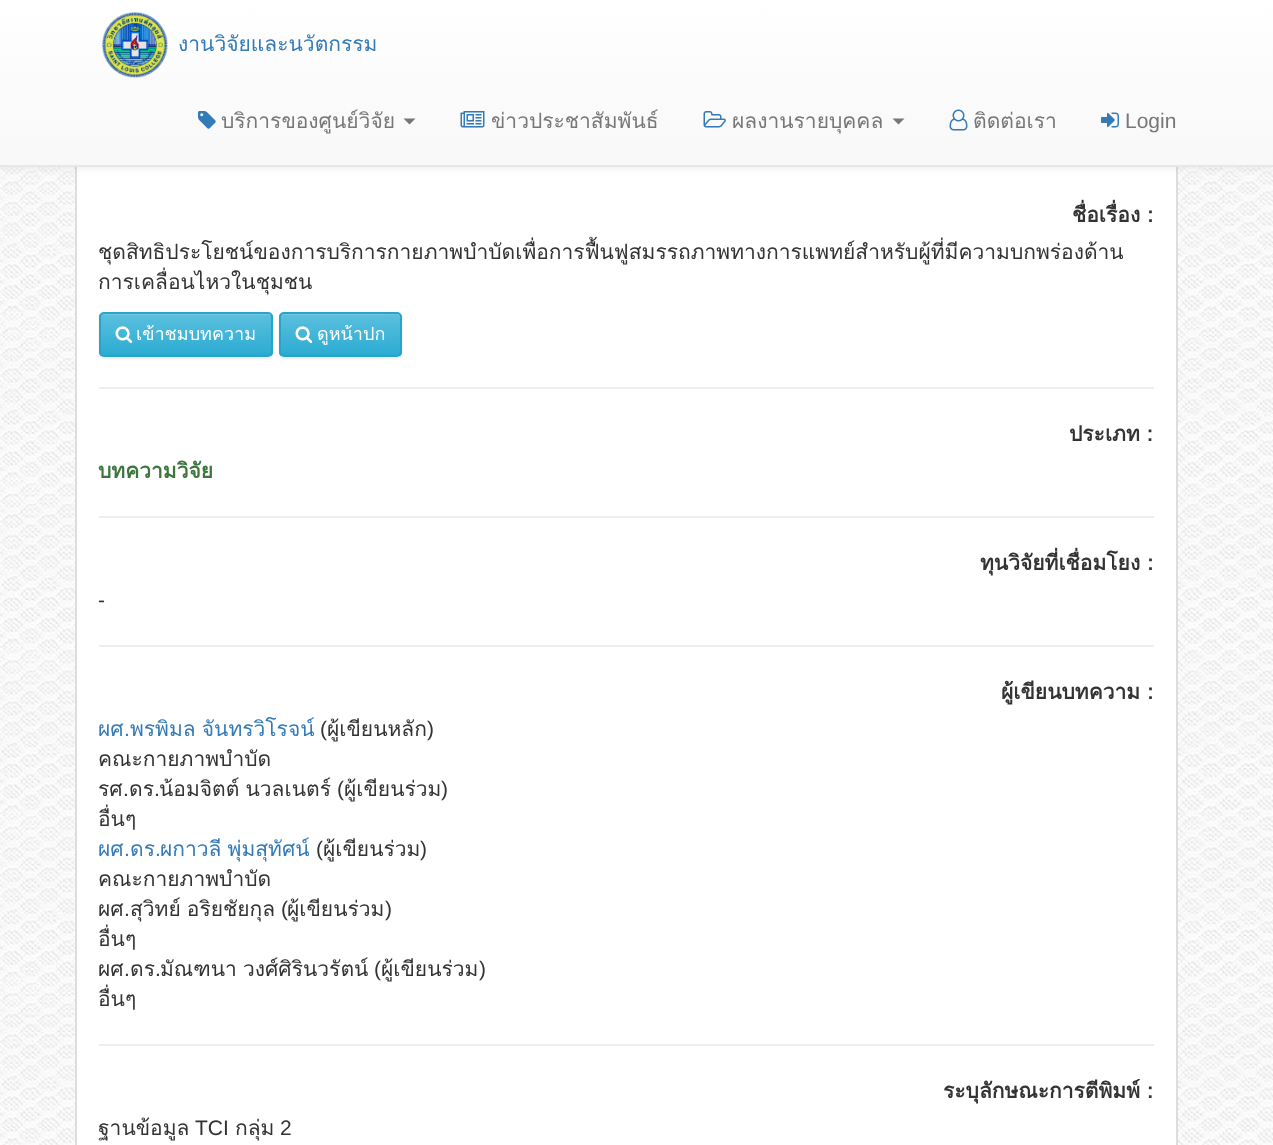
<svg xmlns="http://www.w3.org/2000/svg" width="1273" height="1145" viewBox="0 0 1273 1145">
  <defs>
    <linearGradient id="g1" gradientUnits="userSpaceOnUse" x1="637" y1="0" x2="637" y2="165"><stop offset="0" stop-color="rgb(255,255,255)"/><stop offset="1" stop-color="rgb(248,248,248)"/></linearGradient>
    <clipPath id="clip1"><rect x="99" y="312" width="174" height="45" rx="5"/></clipPath>
    <linearGradient id="g2" gradientUnits="userSpaceOnUse" x1="186" y1="314" x2="186" y2="356"><stop offset="0" stop-color="rgb(91,192,222)"/><stop offset="1" stop-color="rgb(42,171,210)"/></linearGradient>
    <clipPath id="clip2"><rect x="279" y="312" width="123" height="45" rx="5"/></clipPath>
    <linearGradient id="g3" gradientUnits="userSpaceOnUse" x1="341" y1="314" x2="341" y2="356"><stop offset="0" stop-color="rgb(91,192,222)"/><stop offset="1" stop-color="rgb(42,171,210)"/></linearGradient>
  </defs>
  <rect width="100%" height="100%" fill="rgb(255,255,255)"/>
  <image x="0" y="167" width="1273" height="978" href="pic1.png"/>
  <rect x="77" y="167" width="1099" height="978" fill="rgb(255,255,255)"/>
  <rect x="76" y="1" width="1101" height="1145" fill="none" stroke="rgb(221,221,221)" stroke-width="2"/>
  <rect x="0" y="2" width="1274" height="166" fill="rgba(0,0,0,0.07)" filter="blur(4px)"/>
  <rect x="0" y="0" width="1273" height="165" fill="url(#g1)"/>
  <rect x="0" y="165" width="1273" height="2" fill="rgb(231,231,231)"/>
  <image x="102" y="12" width="66" height="66" href="pic2.png"/>
  <text x="178" y="51" font-family="Loma" font-size="21" fill="rgb(51,122,183)">งานวิจัยและนวัตกรรม</text>
  <image x="198" y="111" width="18" height="18" href="pic3.png"/>
  <text x="221" y="128" font-family="Loma" font-size="21" fill="rgb(119,119,119)">บริการของศูนย์วิจัย</text>
  <path d="M403.5 118.5H415.5L409.5 124.5Z" fill="rgb(119,119,119)"/>
  <image x="460" y="111" width="25" height="17" href="pic4.png"/>
  <text x="491" y="128" font-family="Loma" font-size="21" fill="rgb(119,119,119)">ข่าวประชาสัมพันธ์</text>
  <image x="703" y="111" width="23" height="17" href="pic5.png"/>
  <text x="732" y="128" font-family="Loma" font-size="21" fill="rgb(119,119,119)">ผลงานรายบุคคล</text>
  <path d="M892.5 118.5H904.5L898.5 124.5Z" fill="rgb(119,119,119)"/>
  <text x="973" y="128" font-family="Loma" font-size="21" fill="rgb(119,119,119)">ติดต่อเรา</text>
  <image x="949" y="109" width="19" height="22" href="pic6.png"/>
  <image x="1101" y="112" width="18" height="16" href="pic7.png"/>
  <text x="1125" y="128" font-family="Liberation Sans" font-size="21" fill="rgb(119,119,119)">Login</text>
  <text x="1072" y="222" font-family="Loma" font-size="21" font-weight="bold" fill="rgb(51,51,51)">ชื่อเรื่อง :</text>
  <g font-family="Loma" font-size="21" fill="rgb(51,51,51)">
    <text>
      <tspan x="98" y="259">ชุดสิทธิประโยชน์ของการบริการกายภาพบำบัดเพื่อการฟื้นฟูสมรรถภาพทางการแพทย์สำหรับผู้ที่มีความบกพร่องด้าน</tspan>
      <tspan x="98" y="289">การเคลื่อนไหวในชุมชน</tspan>
    </text>
  </g>
  <rect x="99" y="314" width="174" height="45" rx="5" fill="rgba(0,0,0,0.07)" filter="blur(1px)"/>
  <g clip-path="url(#clip1)">
    <rect x="99" y="314" width="174" height="42" fill="url(#g2)"/>
  </g>
  <path d="M104 315H268C270 315 272 316 272 318C272 316 272 314 270 314H104C103 314 102 315 101 316Z" fill="rgb(115,201,227)"/>
  <rect x="100" y="313" width="172" height="43" rx="4" fill="none" stroke="rgb(40,164,201)" stroke-width="2"/>
  <image x="115" y="326" width="18" height="17" href="pic8.png"/>
  <text x="136" y="340" font-family="Loma" font-size="18" fill="rgb(255,255,255)">เข้าชมบทความ</text>
  <rect x="279" y="314" width="123" height="45" rx="5" fill="rgba(0,0,0,0.07)" filter="blur(1px)"/>
  <g clip-path="url(#clip2)">
    <rect x="279" y="314" width="123" height="42" fill="url(#g3)"/>
  </g>
  <path d="M284 315H379C403 315 400 310 400 330V355C401 355 401 354 401 353V317C401 315 400 314 398 314H284C283 314 282 315 281 316Z" fill="rgba(255,255,255,0.15)"/>
  <rect x="280" y="313" width="121" height="43" rx="4" fill="none" stroke="rgb(40,164,201)" stroke-width="2"/>
  <text x="317" y="340" font-family="Loma" font-size="18" fill="rgb(255,255,255)">ดูหน้าปก</text>
  <image x="295" y="326" width="17" height="17" href="pic9.png"/>
  <rect x="99" y="387" width="1055" height="2" fill="rgb(238,238,238)"/>
  <text x="1069" y="441" font-family="Loma" font-size="21" font-weight="bold" fill="rgb(51,51,51)">ประเภท :</text>
  <text x="98" y="478" font-family="Loma" font-size="21" font-weight="bold" fill="rgb(60,118,61)">บทความวิจัย</text>
  <rect x="99" y="516" width="1055" height="2" fill="rgb(238,238,238)"/>
  <text x="980" y="570" font-family="Loma" font-size="21" font-weight="bold" fill="rgb(51,51,51)">ทุนวิจัยที่เชื่อมโยง :</text>
  <text x="98" y="607" font-family="Liberation Sans" font-size="21" fill="rgb(51,51,51)">-</text>
  <rect x="99" y="645" width="1055" height="2" fill="rgb(238,238,238)"/>
  <text x="1001" y="699" font-family="Loma" font-size="21" font-weight="bold" fill="rgb(51,51,51)">ผู้เขียนบทความ :</text>
  <text x="130" y="736" word-spacing="-1" font-family="Loma" font-size="21" fill="rgb(51,122,183)">พรพิมล จันทรวิโรจน์</text>
  <text x="320" y="736" font-family="Liberation Sans" font-size="21" fill="rgb(51,51,51)">(</text>
  <text x="327" y="736" font-family="Loma" font-size="21" fill="rgb(51,51,51)">ผู้เขียนหลัก</text>
  <text x="98" y="736" font-family="Loma" font-size="21" fill="rgb(51,122,183)">ผศ</text>
  <text x="124" y="736" font-family="Liberation Sans" font-size="21" fill="rgb(51,122,183)">.</text>
  <text x="427" y="736" font-family="Liberation Sans" font-size="21" fill="rgb(51,51,51)">)</text>
  <g font-family="Loma" font-size="21" fill="rgb(51,51,51)">
    <text x="98" y="766">คณะกายภาพบำบัด</text>
    <text x="129" y="796">ดร</text>
  </g>
  <text x="154" y="796" font-family="Liberation Sans" font-size="21" fill="rgb(51,51,51)">.</text>
  <text x="159" y="796" word-spacing="-1" font-family="Loma" font-size="21" fill="rgb(51,51,51)">น้อมจิตต์ นวลเนตร์</text>
  <text x="337" y="796" font-family="Liberation Sans" font-size="21" fill="rgb(51,51,51)">(</text>
  <g font-family="Loma" font-size="21" fill="rgb(51,51,51)">
    <text x="344" y="796">ผู้เขียนร่วม</text>
    <text x="98" y="796">รศ</text>
  </g>
  <g font-family="Liberation Sans" font-size="21" fill="rgb(51,51,51)">
    <text x="123" y="796">.</text>
    <text x="441" y="796">)</text>
  </g>
  <text x="98" y="826" font-family="Loma" font-size="21" fill="rgb(51,51,51)">อื่นๆ</text>
  <text x="160" y="856" word-spacing="-1" font-family="Loma" font-size="21" fill="rgb(51,122,183)">ผกาวลี พุ่มสุทัศน์</text>
  <text x="316" y="856" font-family="Liberation Sans" font-size="21" fill="rgb(51,51,51)">(</text>
  <text x="323" y="856" font-family="Loma" font-size="21" fill="rgb(51,51,51)">ผู้เขียนร่วม</text>
  <text x="98" y="856" font-family="Loma" font-size="21" fill="rgb(51,122,183)">ผศ</text>
  <text x="124" y="856" font-family="Liberation Sans" font-size="21" fill="rgb(51,122,183)">.</text>
  <text x="130" y="856" font-family="Loma" font-size="21" fill="rgb(51,122,183)">ดร</text>
  <text x="155" y="856" font-family="Liberation Sans" font-size="21" fill="rgb(51,122,183)">.</text>
  <text x="420" y="856" font-family="Liberation Sans" font-size="21" fill="rgb(51,51,51)">)</text>
  <text x="98" y="886" font-family="Loma" font-size="21" fill="rgb(51,51,51)">คณะกายภาพบำบัด</text>
  <text x="124" y="916" font-family="Liberation Sans" font-size="21" fill="rgb(51,51,51)">.</text>
  <text x="130" y="916" word-spacing="-1" font-family="Loma" font-size="21" fill="rgb(51,51,51)">สุวิทย์ อริยชัยกุล</text>
  <text x="281" y="916" font-family="Liberation Sans" font-size="21" fill="rgb(51,51,51)">(</text>
  <g font-family="Loma" font-size="21" fill="rgb(51,51,51)">
    <text x="287" y="916">ผู้เขียนร่วม</text>
    <text x="98" y="916">ผศ</text>
  </g>
  <text x="385" y="916" font-family="Liberation Sans" font-size="21" fill="rgb(51,51,51)">)</text>
  <g font-family="Loma" font-size="21" fill="rgb(51,51,51)">
    <text x="98" y="946">อื่นๆ</text>
    <text x="130" y="976">ดร</text>
  </g>
  <text x="155" y="976" font-family="Liberation Sans" font-size="21" fill="rgb(51,51,51)">.</text>
  <text x="160" y="976" word-spacing="-1" font-family="Loma" font-size="21" fill="rgb(51,51,51)">มัณฑนา วงศ์ศิรินวรัตน์</text>
  <text x="374" y="976" font-family="Liberation Sans" font-size="21" fill="rgb(51,51,51)">(</text>
  <g font-family="Loma" font-size="21" fill="rgb(51,51,51)">
    <text x="381" y="976">ผู้เขียนร่วม</text>
    <text x="98" y="976">ผศ</text>
  </g>
  <g font-family="Liberation Sans" font-size="21" fill="rgb(51,51,51)">
    <text x="124" y="976">.</text>
    <text x="479" y="976">)</text>
  </g>
  <text x="98" y="1006" font-family="Loma" font-size="21" fill="rgb(51,51,51)">อื่นๆ</text>
  <rect x="99" y="1044" width="1055" height="2" fill="rgb(238,238,238)"/>
  <text x="943" y="1098" font-family="Loma" font-size="21" font-weight="bold" fill="rgb(51,51,51)">ระบุลักษณะการตีพิมพ์ :</text>
  <text x="98" y="1135" font-family="Loma" font-size="21" fill="rgb(51,51,51)">ฐานข้อมูล</text>
  <text x="195" y="1135" font-family="Liberation Sans" font-size="21" fill="rgb(51,51,51)">TCI</text>
  <text x="235" y="1135" font-family="Loma" font-size="21" fill="rgb(51,51,51)">กลุ่ม</text>
  <text x="280" y="1135" font-family="Liberation Sans" font-size="21" fill="rgb(51,51,51)">2</text>
</svg>
